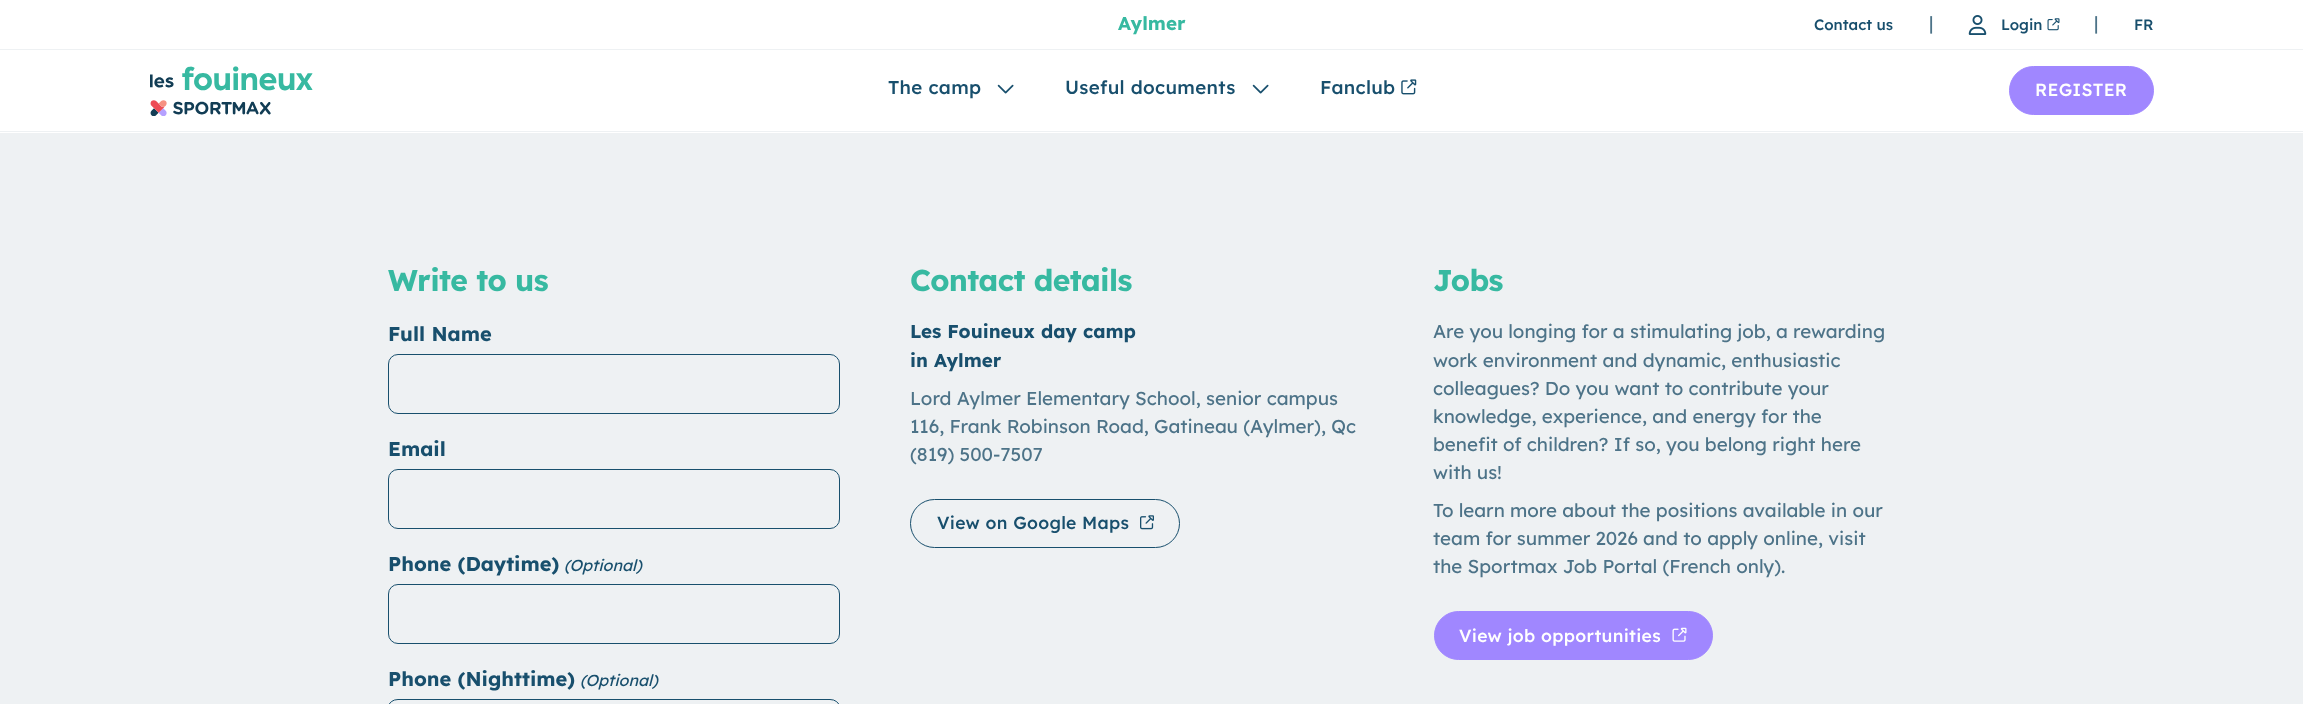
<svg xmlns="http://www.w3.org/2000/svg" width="2303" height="704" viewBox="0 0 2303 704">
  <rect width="100%" height="100%" fill="rgb(255,255,255)"/>
  <rect x="0" y="49" width="2303" height="1" fill="rgb(238,241,243)"/>
  <text x="1118" y="30" font-family="Lexend Deca" font-size="18.75" font-weight="bold" fill="rgb(55,185,161)">Aylmer</text>
  <text x="1814" y="30" font-family="Lexend Deca" font-size="15" font-weight="500" fill="rgb(24,79,109)">Contact us</text>
  <text x="1929" y="30" font-family="Lexend Deca" font-size="18.75" fill="rgb(77,115,136)">|</text>
  <image x="1968" y="15" width="19" height="20" href="pic1.png"/>
  <text x="2001" y="30" font-family="Lexend Deca" font-size="15" font-weight="500" fill="rgb(24,79,109)">Login</text>
  <image x="2047" y="18" width="13" height="13" href="pic2.png"/>
  <text x="2094" y="30" font-family="Lexend Deca" font-size="18.75" fill="rgb(77,115,136)">|</text>
  <text x="2134" y="30" font-family="Lexend Deca" font-size="15" font-weight="500" fill="rgb(24,79,109)">FR</text>
  <rect x="0" y="131" width="2303" height="1" fill="rgb(238,241,243)"/>
  <image x="150" y="66" width="163" height="50" href="pic3.png"/>
  <text x="888" y="94" font-family="Lexend Deca" font-size="18.75" font-weight="500" letter-spacing="0.3" fill="rgb(24,79,109)">The camp</text>
  <image x="997" y="84" width="17" height="10" href="pic4.png"/>
  <text x="1065" y="94" font-family="Lexend Deca" font-size="18.75" font-weight="500" letter-spacing="0.3" fill="rgb(24,79,109)">Useful documents</text>
  <image x="1252" y="84" width="17" height="10" href="pic4.png"/>
  <text x="1320" y="94" font-family="Lexend Deca" font-size="18.75" font-weight="500" letter-spacing="0.3" fill="rgb(24,79,109)">Fanclub</text>
  <image x="1401" y="79" width="16" height="16" href="pic5.png"/>
  <rect x="2009.5" y="66.5" width="144" height="48" rx="24" fill="rgb(160,135,255)" stroke="rgb(160,135,255)"/>
  <text x="2035" y="96" font-family="Lexend Deca" font-size="17.5" font-weight="500" letter-spacing="0.3" fill="rgb(255,255,255)">REGISTER</text>
  <rect x="0" y="133" width="2303" height="571" fill="rgb(238,241,243)"/>
  <text x="388" y="291" font-family="Lexend Deca" font-size="30" font-weight="bold" letter-spacing="-0.6" fill="rgb(55,185,161)">Write to us</text>
  <text x="388" y="341" font-family="Lexend Deca" font-size="20" font-weight="bold" fill="rgb(24,79,109)">Full Name</text>
  <rect x="388.5" y="354.5" width="451" height="59" rx="9.5" fill="none" stroke="rgb(24,79,109)"/>
  <text x="388" y="456" font-family="Lexend Deca" font-size="20" font-weight="bold" fill="rgb(24,79,109)">Email</text>
  <rect x="388.5" y="469.5" width="451" height="59" rx="9.5" fill="none" stroke="rgb(24,79,109)"/>
  <text x="388" y="571" font-family="Lexend Deca" font-size="20" font-weight="bold" fill="rgb(24,79,109)">Phone (Daytime)</text>
  <text x="564" y="571" font-family="Lexend Deca" font-size="16" font-style="italic" fill="rgb(24,79,109)">(Optional)</text>
  <rect x="388.5" y="584.5" width="451" height="59" rx="9.5" fill="none" stroke="rgb(24,79,109)"/>
  <text x="388" y="686" font-family="Lexend Deca" font-size="20" font-weight="bold" fill="rgb(24,79,109)">Phone (Nighttime)</text>
  <text x="580" y="686" font-family="Lexend Deca" font-size="16" font-style="italic" fill="rgb(24,79,109)">(Optional)</text>
  <rect x="388.5" y="699.5" width="451" height="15" rx="9.5" fill="none" stroke="rgb(24,79,109)"/>
  <text x="910" y="291" font-family="Lexend Deca" font-size="30" font-weight="bold" letter-spacing="-0.6" fill="rgb(55,185,161)">Contact details</text>
  <g font-family="Lexend Deca" font-size="18.75" font-weight="bold" fill="rgb(24,79,109)">
    <text>
      <tspan x="910" y="338">Les Fouineux day camp</tspan>
      <tspan x="910" y="367">in Aylmer</tspan>
    </text>
  </g>
  <g font-family="Lexend Deca" font-size="18.75" fill="rgb(77,115,136)">
    <text>
      <tspan x="910" y="405">Lord Aylmer Elementary School, senior campus</tspan>
      <tspan x="910" y="433">116, Frank Robinson Road, Gatineau (Aylmer), Qc</tspan>
      <tspan x="910" y="461">(819) 500-7507</tspan>
    </text>
  </g>
  <rect x="910.5" y="499.5" width="269" height="48" rx="24" fill="none" stroke="rgb(24,79,109)"/>
  <text x="937" y="529" font-family="Lexend Deca" font-size="17.5" font-weight="500" letter-spacing="0.3" fill="rgb(24,79,109)">View on Google Maps</text>
  <image x="1140" y="515" width="14" height="15" href="pic6.png"/>
  <text x="1433" y="291" font-family="Lexend Deca" font-size="30" font-weight="bold" letter-spacing="-0.6" fill="rgb(55,185,161)">Jobs</text>
  <g font-family="Lexend Deca" font-size="18.75" fill="rgb(77,115,136)">
    <text>
      <tspan x="1433" y="338">Are you longing for a stimulating job, a rewarding</tspan>
      <tspan x="1433" y="367">work environment and dynamic, enthusiastic</tspan>
      <tspan x="1433" y="395">colleagues? Do you want to contribute your</tspan>
      <tspan x="1433" y="423">knowledge, experience, and energy for the</tspan>
      <tspan x="1433" y="451">benefit of children? If so, you belong right here</tspan>
      <tspan x="1433" y="479">with us!</tspan>
    </text>
    <text>
      <tspan x="1433" y="517">To learn more about the positions available in our</tspan>
      <tspan x="1433" y="545">team for summer 2026 and to apply online, visit</tspan>
      <tspan x="1433" y="573">the Sportmax Job Portal (French only).</tspan>
    </text>
  </g>
  <rect x="1434.5" y="611.5" width="278" height="48" rx="24" fill="rgb(160,135,255)" stroke="rgb(160,135,255)"/>
  <text x="1459" y="642" font-family="Lexend Deca" font-size="17.5" font-weight="500" letter-spacing="0.3" fill="rgb(255,255,255)">View job opportunities</text>
  <image x="1672" y="627" width="15" height="15" href="pic7.png"/>
</svg>
